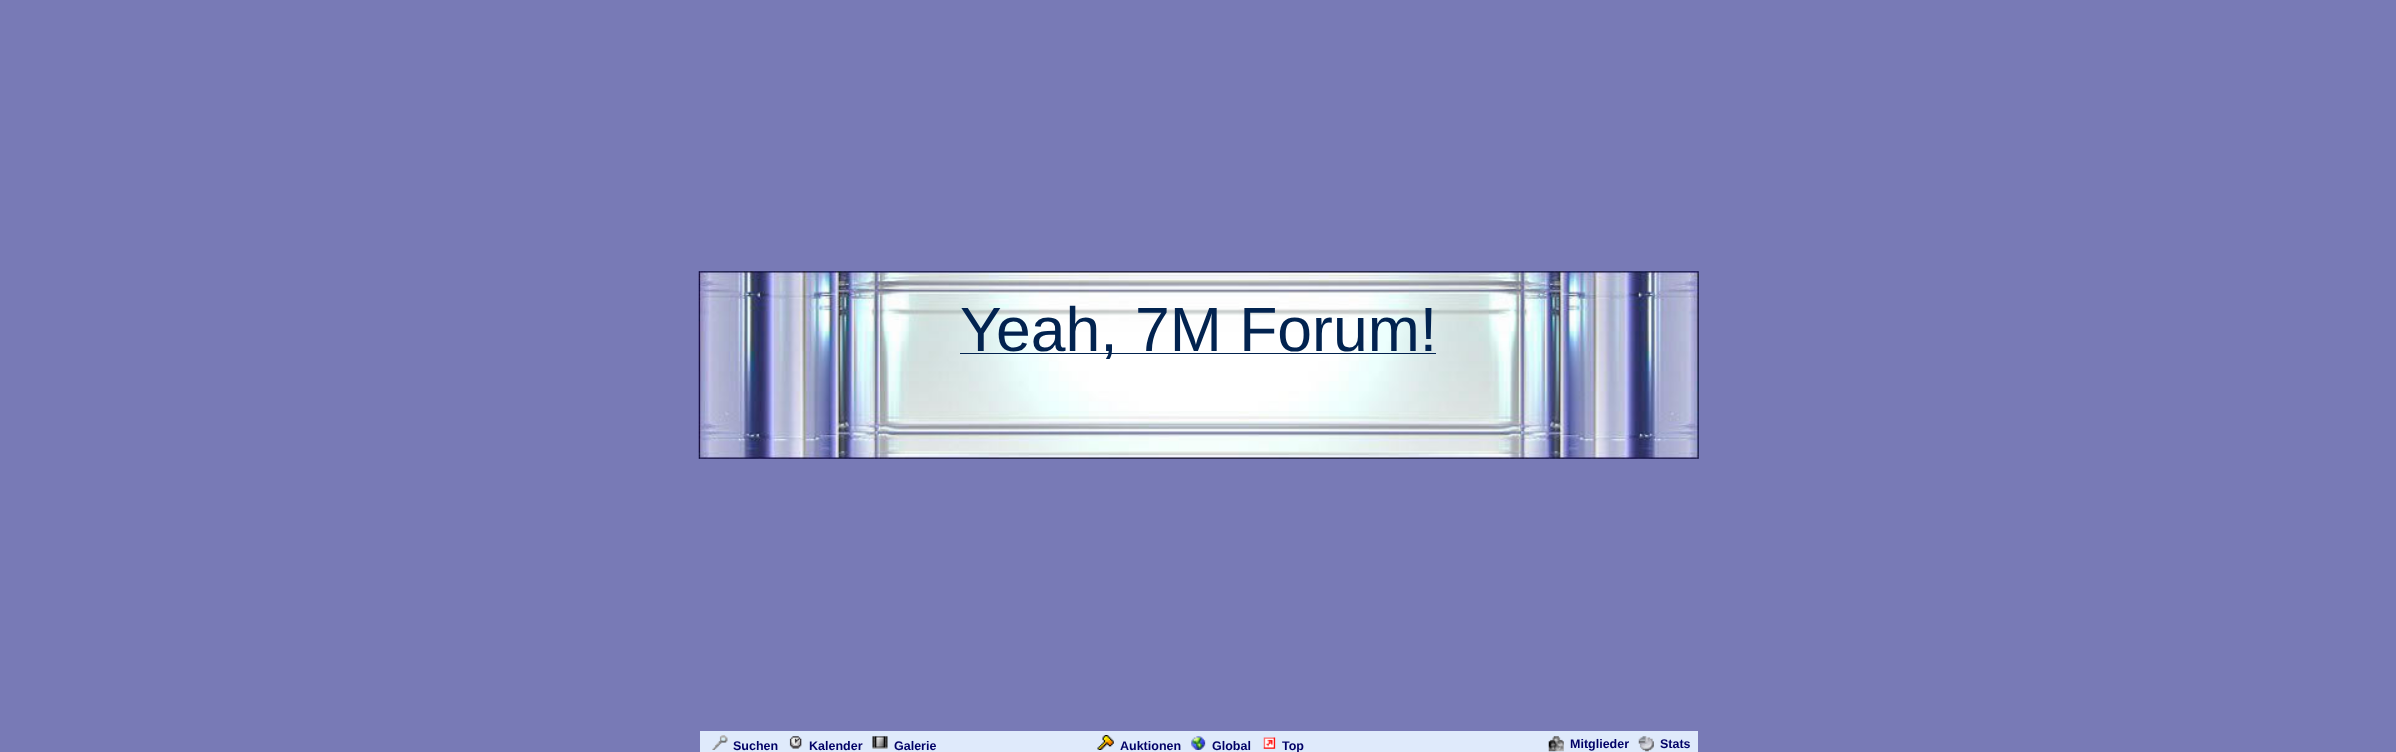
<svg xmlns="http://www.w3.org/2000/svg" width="2396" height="752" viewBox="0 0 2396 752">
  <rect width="100%" height="100%" fill="rgb(120,122,182)"/>
  <image x="698" y="271" width="1001" height="188" href="pic1.png"/>
  <rect x="960" y="353" width="476" height="1" fill="rgb(2,35,80)"/>
  <text x="960" y="351" font-family="Liberation Sans" font-size="62.5" fill="rgb(2,35,80)">Yeah, 7M Forum!</text>
  <rect x="700" y="731" width="998" height="21" fill="rgb(223,234,251)"/>
  <image x="712" y="735" width="16" height="15" href="pic2.png"/>
  <text x="733" y="750" font-family="Liberation Sans" font-size="12.5" font-weight="bold" fill="rgb(0,0,102)">Suchen</text>
  <image x="789" y="736" width="13" height="13" href="pic3.png"/>
  <text x="809" y="750" font-family="Liberation Sans" font-size="12.5" font-weight="bold" fill="rgb(0,0,102)">Kalender</text>
  <image x="872" y="736" width="16" height="13" href="pic4.png"/>
  <text x="894" y="750" font-family="Liberation Sans" font-size="12.5" font-weight="bold" fill="rgb(0,0,102)">Galerie</text>
  <image x="1097" y="735" width="17" height="15" href="pic5.png"/>
  <text x="1120" y="750" font-family="Liberation Sans" font-size="12.5" font-weight="bold" fill="rgb(0,0,102)">Auktionen</text>
  <image x="1191" y="736" width="15" height="14" href="pic6.png"/>
  <text x="1212" y="750" font-family="Liberation Sans" font-size="12.5" font-weight="bold" fill="rgb(0,0,102)">Global</text>
  <image x="1263" y="737" width="13" height="12" href="pic7.png"/>
  <text x="1282" y="750" font-family="Liberation Sans" font-size="12.5" font-weight="bold" fill="rgb(0,0,102)">Top</text>
  <image x="1548" y="736" width="16" height="16" href="pic8.png"/>
  <text x="1570" y="748" font-family="Liberation Sans" font-size="12.5" font-weight="bold" fill="rgb(0,0,102)">Mitglieder</text>
  <image x="1638" y="736" width="16" height="16" href="pic9.png"/>
  <text x="1660" y="748" font-family="Liberation Sans" font-size="12.5" font-weight="bold" fill="rgb(0,0,102)">Stats</text>
</svg>
